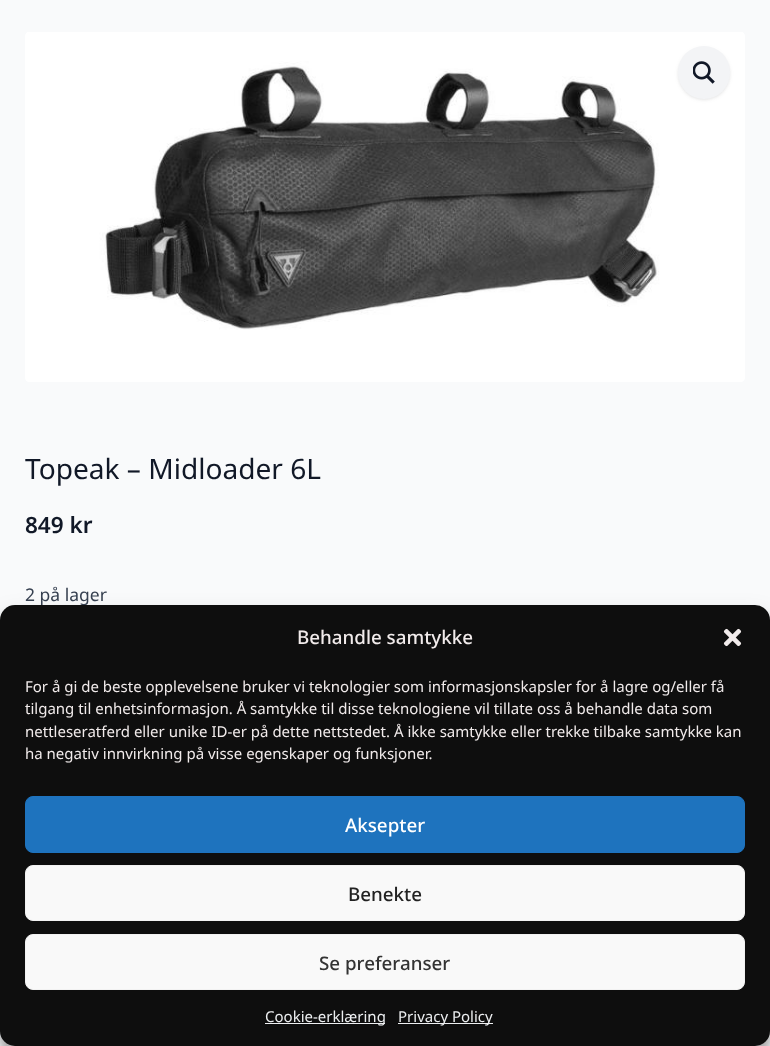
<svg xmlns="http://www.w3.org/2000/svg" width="770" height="1046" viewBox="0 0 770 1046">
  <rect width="100%" height="100%" fill="rgb(249,250,251)"/>
  <image x="25" y="32" width="720" height="350" href="pic1.png"/>
  <rect x="678" y="48" width="52" height="52" rx="26" fill="rgba(0,0,0,0.05)" filter="blur(1px)"/>
  <rect x="678" y="48" width="52" height="52" rx="26" fill="rgba(0,0,0,0.05)" filter="blur(2px)"/>
  <rect x="678" y="46" width="52" height="53" rx="26" fill="rgb(243,244,246)"/>
  <image x="693" y="61" width="22" height="23" href="pic2.png"/>
  <text x="25" y="479" font-family="Noto Sans" font-size="28.1" fill="rgb(17,24,39)">Topeak – Midloader 6L</text>
  <text x="25" y="533" font-family="Noto Sans" font-size="22.5" font-weight="600" fill="rgb(17,24,39)">849 kr</text>
  <text x="25" y="601" font-family="Noto Sans" font-size="17.5" fill="rgb(55,65,81)">2 på lager</text>
  <rect x="0" y="613" width="770" height="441" rx="15" fill="rgba(0,0,0,0.23)" filter="blur(4px)"/>
  <rect x="0" y="618" width="770" height="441" rx="15" fill="rgba(0,0,0,0.19)" filter="blur(12.5px)"/>
  <rect x="0" y="605" width="770" height="441" rx="15" fill="rgb(14,14,14)"/>
  <text x="297" y="644" font-family="Noto Sans" font-size="18.75" font-weight="500" fill="rgb(241,235,235)">Behandle samtykke</text>
  <image x="723" y="628" width="19" height="19" href="pic3.png"/>
  <g font-family="Noto Sans" font-size="15" fill="rgb(241,235,235)">
    <text>
      <tspan x="25" y="692">For å gi de beste opplevelsene bruker vi teknologier som informasjonskapsler for å lagre og/eller få</tspan>
      <tspan x="25" y="714">tilgang til enhetsinformasjon. Å samtykke til disse teknologiene vil tillate oss å behandle data som</tspan>
      <tspan x="25" y="737">nettleseratferd eller unike ID-er på dette nettstedet. Å ikke samtykke eller trekke tilbake samtykke kan</tspan>
      <tspan x="25" y="759">ha negativ innvirkning på visse egenskaper og funksjoner.</tspan>
    </text>
  </g>
  <rect x="25.5" y="796.5" width="719" height="56" rx="7.5" fill="rgb(30,115,190)" stroke="rgb(30,115,190)"/>
  <text x="345" y="832" font-family="Noto Sans" font-size="18.75" font-weight="500" fill="rgb(255,255,255)">Aksepter</text>
  <rect x="25.5" y="865.5" width="719" height="55" rx="7.5" fill="rgb(249,249,249)" stroke="rgb(242,242,242)"/>
  <text x="348" y="901" font-family="Noto Sans" font-size="18.75" font-weight="500" fill="rgb(34,34,34)">Benekte</text>
  <rect x="25.5" y="934.5" width="719" height="55" rx="7.5" fill="rgb(249,249,249)" stroke="rgb(242,242,242)"/>
  <text x="319" y="970" font-family="Noto Sans" font-size="18.75" font-weight="500" fill="rgb(51,51,51)">Se preferanser</text>
  <rect x="265" y="1023" width="120" height="1" fill="rgb(237,239,241)"/>
  <text x="265" y="1022" font-family="Noto Sans" font-size="15" fill="rgb(237,239,241)">Cookie-erklæring</text>
  <rect x="398" y="1023" width="95" height="1" fill="rgb(237,239,241)"/>
  <text x="398" y="1022" font-family="Noto Sans" font-size="15" fill="rgb(237,239,241)">Privacy Policy</text>
</svg>
